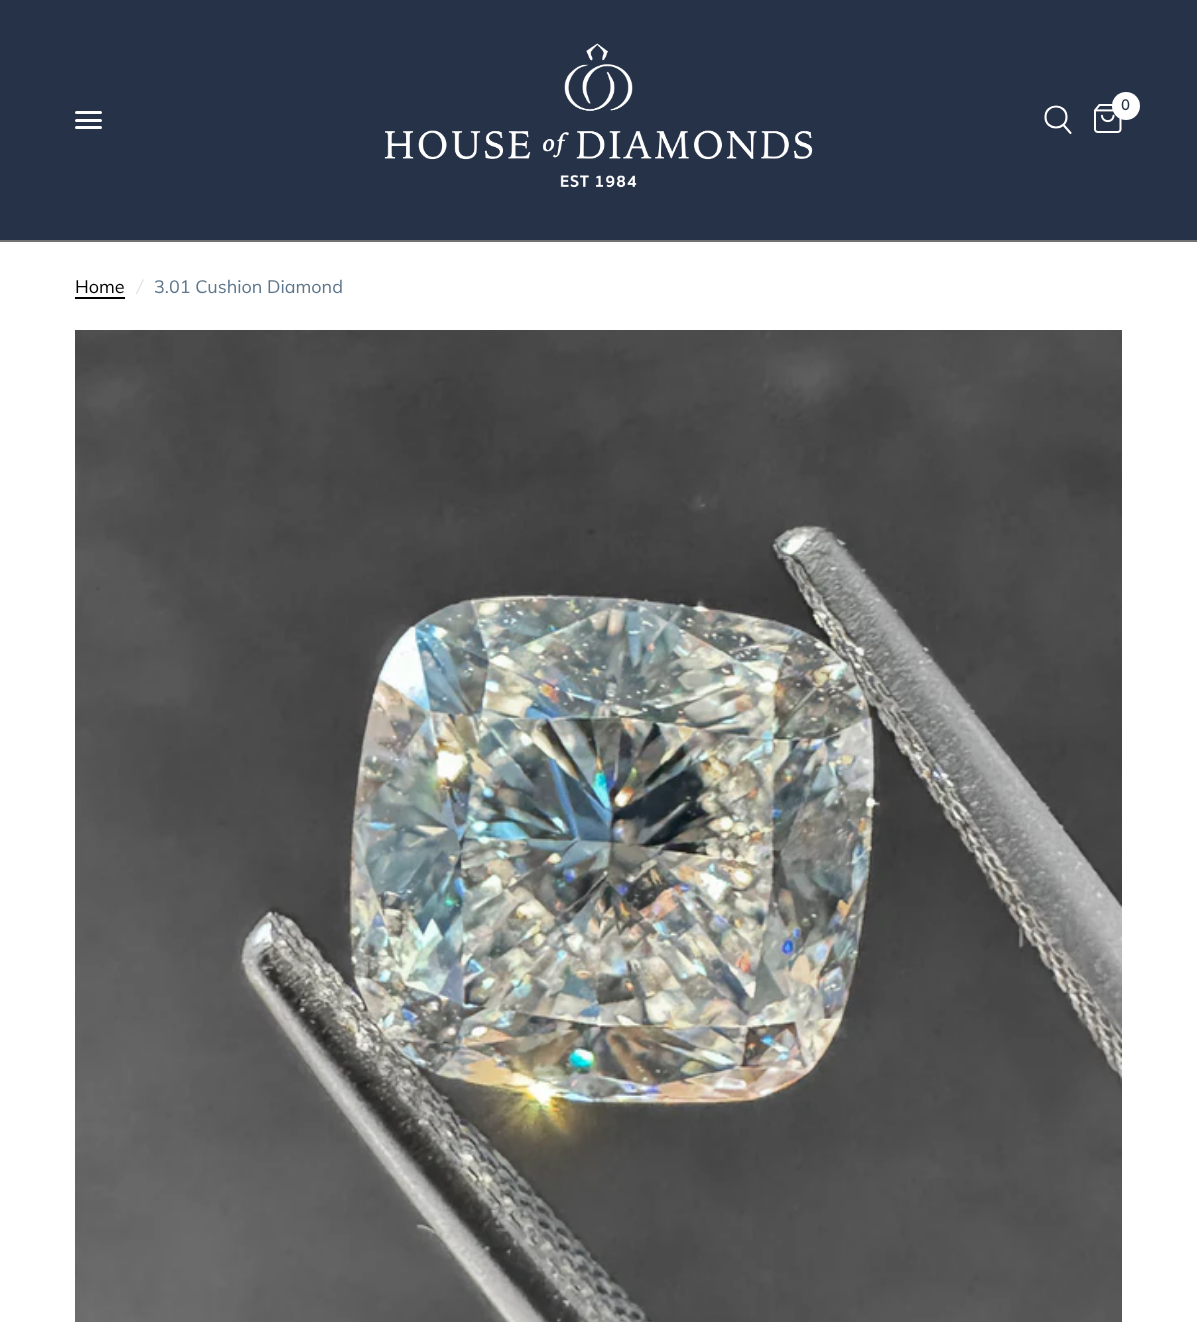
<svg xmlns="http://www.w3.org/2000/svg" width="1197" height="1322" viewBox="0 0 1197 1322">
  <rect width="100%" height="100%" fill="rgb(255,255,255)"/>
  <rect x="0" y="0" width="1197" height="240" fill="rgb(38,50,72)"/>
  <rect x="0" y="240" width="1197" height="2" fill="rgb(115,114,114)"/>
  <image x="384" y="43" width="429" height="145" href="pic1.png"/>
  <path d="M1063.5 125L1070.5 133M1066.5 117C1066.5 131 1045.5 131 1045.5 117C1045.5 103 1066.5 103 1066.5 117Z" fill="none" stroke="rgb(255,255,255)" stroke-width="2.1" stroke-linecap="round" stroke-linejoin="round"/>
  <image x="1094" y="104" width="28" height="29" href="pic2.png"/>
  <circle cx="1126" cy="106" r="14" fill="rgb(255,255,255)"/>
  <text x="1121" y="110" font-family="Muli" font-size="15" font-weight="600" fill="rgb(38,50,72)">0</text>
  <rect x="75" y="111" width="27" height="3" rx="1.5" fill="rgb(255,255,255)"/>
  <rect x="75" y="119" width="27" height="3" rx="1.5" fill="rgb(255,255,255)"/>
  <rect x="75" y="126" width="27" height="3" rx="1.5" fill="rgb(255,255,255)"/>
  <text x="75" y="293" font-family="Muli" font-size="18" fill="rgb(0,0,0)">Home</text>
  <rect x="75" y="297" width="50" height="2" fill="rgb(0,0,0)"/>
  <text x="137" y="293" font-family="Muli" font-size="18" font-style="italic" fill="rgb(223,228,232)">/</text>
  <text x="154" y="293" font-family="Muli" font-size="18" fill="rgb(93,118,139)">3.01 Cushion Diamond</text>
  <image x="75" y="330" width="1047" height="992" href="pic3.png"/>
</svg>
